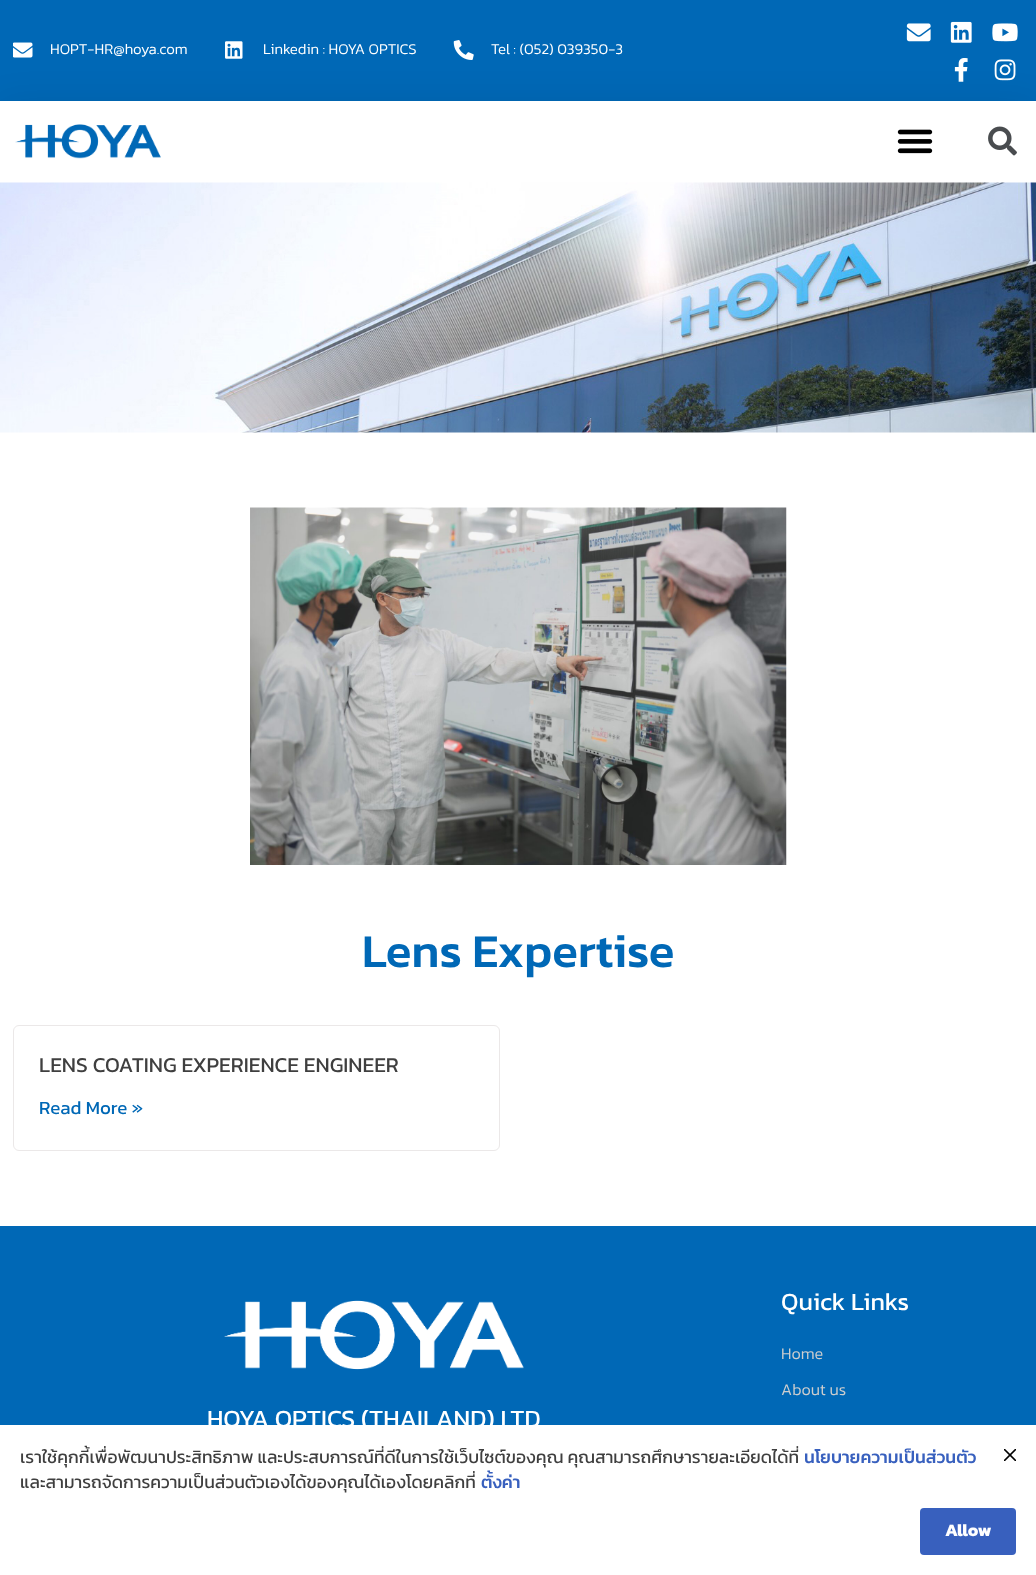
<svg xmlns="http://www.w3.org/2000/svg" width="1036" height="1575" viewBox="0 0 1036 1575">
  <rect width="100%" height="100%" fill="rgb(255,255,255)"/>
  <rect x="0" y="0" width="1036" height="101" fill="rgb(0,104,182)"/>
  <image x="13" y="42" width="20" height="16" href="pic1.png"/>
  <text x="50" y="54" font-family="Kanit" font-size="15" font-weight="300" fill="rgb(255,255,255)">HOPT-HR@hoya.com</text>
  <image x="225" y="41" width="18" height="18" href="pic2.png"/>
  <text x="263" y="54" font-family="Kanit" font-size="15" font-weight="300" fill="rgb(255,255,255)">Linkedin : HOYA OPTICS</text>
  <image x="453" y="40" width="21" height="20" href="pic3.png"/>
  <text x="491" y="54" font-family="Kanit" font-size="15" font-weight="300" fill="rgb(255,255,255)">Tel : (052) 039350-3</text>
  <image x="906" y="23" width="25" height="19" href="pic4.png"/>
  <image x="950" y="21" width="22" height="22" href="pic5.png"/>
  <image x="992" y="23" width="26" height="19" href="pic6.png"/>
  <image x="954" y="58" width="14" height="24" href="pic7.png"/>
  <image x="994" y="59" width="22" height="22" href="pic8.png"/>
  <rect x="0" y="108" width="1036" height="81" fill="rgba(0,0,0,0.1)" filter="blur(19px)"/>
  <rect x="0" y="101" width="1036" height="82" fill="rgb(255,255,255)"/>
  <image x="15" y="124" width="146" height="35" href="pic9.png"/>
  <image x="897" y="129" width="36" height="25" href="pic10.png"/>
  <image x="988" y="126" width="29" height="30" href="pic11.png"/>
  <image x="0" y="182" width="1036" height="251" href="pic12.png"/>
  <image x="250" y="507" width="537" height="358" href="pic13.png"/>
  <text x="362" y="967" font-family="Kanit" font-size="47.5" font-weight="500" fill="rgb(0,104,182)">Lens Expertise</text>
  <rect x="13.5" y="1025.5" width="486" height="125" rx="5.5" fill="none" stroke="rgb(235,232,232)"/>
  <text x="39" y="1072" font-family="Kanit" font-size="21.25" fill="rgb(63,63,63)">LENS COATING EXPERIENCE ENGINEER</text>
  <text x="39" y="1114" font-family="Kanit" font-size="18.75" fill="rgb(0,104,182)">Read More »</text>
  <rect x="0" y="1226" width="1036" height="199" fill="rgb(0,104,182)"/>
  <text x="781" y="1310" font-family="Kanit" font-size="25" fill="rgb(255,255,255)">Quick Links</text>
  <g font-family="Kanit" font-size="16.25" font-weight="300" fill="rgb(206,206,206)">
    <text x="781" y="1359">Home</text>
    <text x="781" y="1395">About us</text>
  </g>
  <image x="224" y="1300" width="300" height="70" href="pic14.png"/>
  <text x="207" y="1427" font-family="Kanit" font-size="25" fill="rgb(255,255,255)">HOYA OPTICS (THAILAND) LTD</text>
  <text x="20" y="1463" font-family="Kanit" font-size="17.5" fill="rgb(63,63,63)">เราใช้คุกกี้เพื่อพัฒนาประสิทธิภาพ และประสบการณ์ที่ดีในการใช้เว็บไซต์ของคุณ คุณสามารถศึกษารายละเอียดได้ที่</text>
  <text x="804" y="1463" font-family="Kanit" font-size="17.5" font-weight="500" fill="rgb(56,96,190)">นโยบายความเป็นส่วนตัว</text>
  <text x="20" y="1488" font-family="Kanit" font-size="17.5" fill="rgb(63,63,63)">และสามารถจัดการความเป็นส่วนตัวเองได้ของคุณได้เองโดยคลิกที่</text>
  <text x="481" y="1488" font-family="Kanit" font-size="17.5" font-weight="500" fill="rgb(56,96,190)">ตั้งค่า</text>
  <image x="1004" y="1449" width="12" height="12" href="pic15.png"/>
  <rect x="920" y="1508" width="96" height="47" rx="4" fill="rgb(56,96,190)"/>
  <text x="945" y="1536" font-family="Kanit" font-size="17.5" font-weight="bold" fill="rgb(255,255,255)">Allow</text>
</svg>
